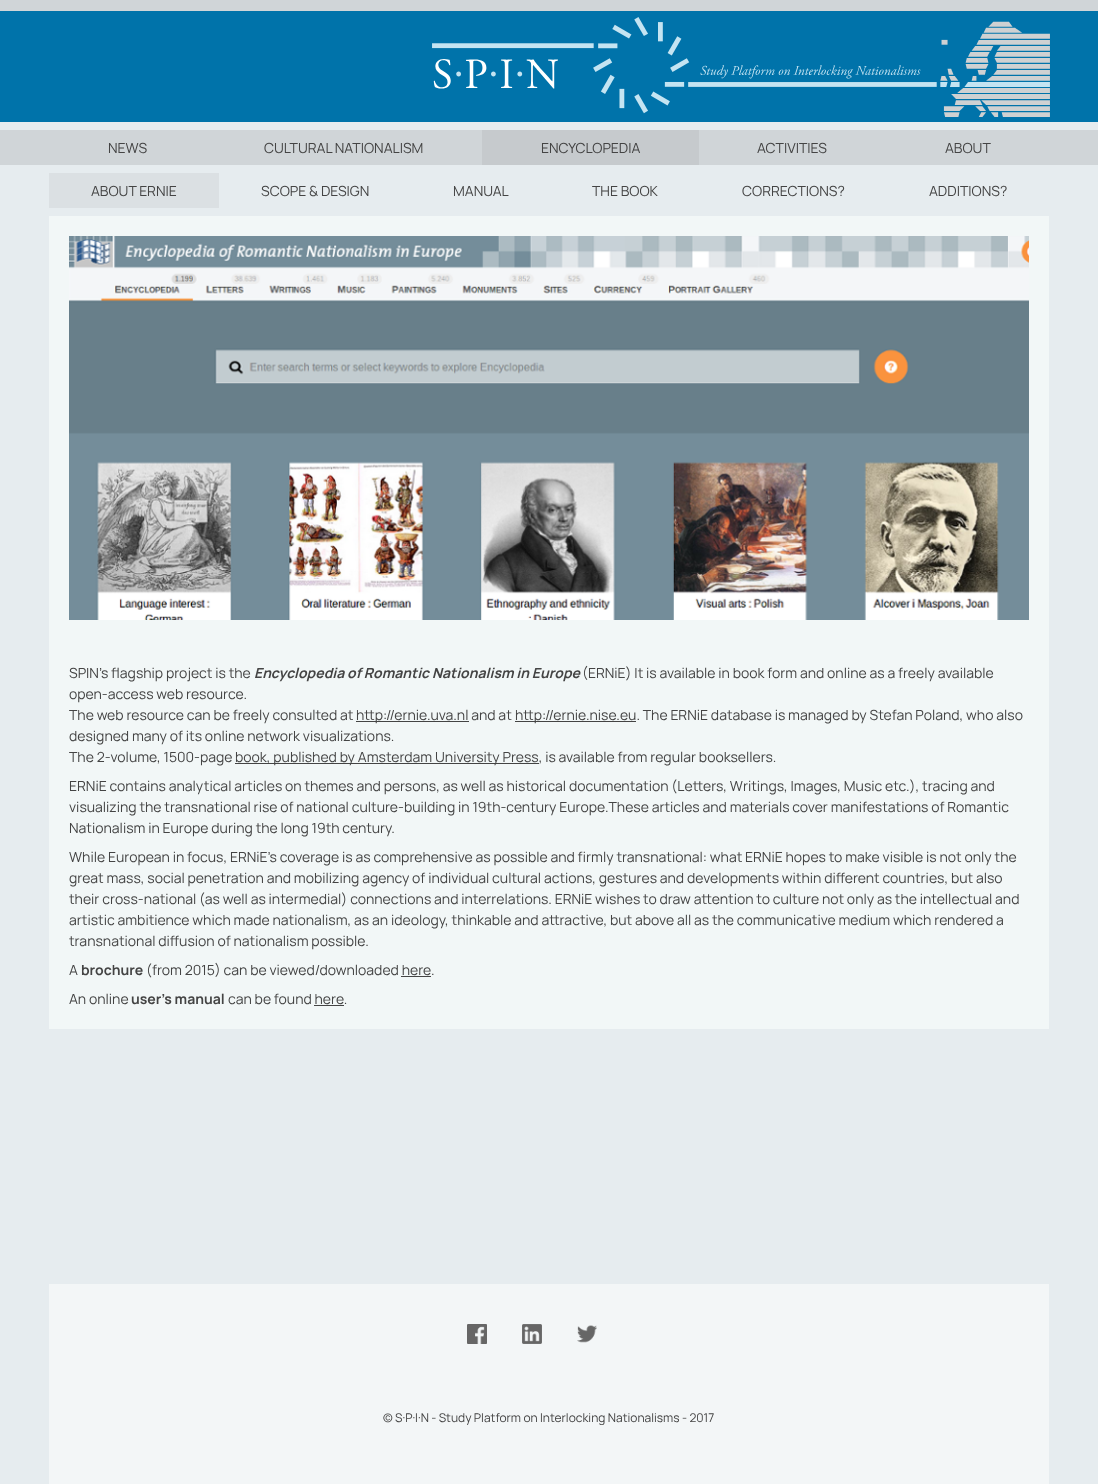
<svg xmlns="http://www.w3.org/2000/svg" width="1098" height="1484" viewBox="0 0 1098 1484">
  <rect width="100%" height="100%" fill="rgb(230,236,239)"/>
  <rect x="0" y="0" width="1098" height="11" fill="rgb(208,213,216)"/>
  <rect x="0" y="11" width="1098" height="111" fill="rgb(0,115,170)"/>
  <image x="432" y="17" width="618" height="100" href="pic1.png"/>
  <rect x="0" y="130" width="1098" height="35" fill="rgb(208,213,216)"/>
  <g font-family="Manrope" font-size="14" fill="rgb(68,68,68)">
    <text x="108" y="153">NEWS</text>
    <text x="264" y="153">CULTURAL NATIONALISM</text>
  </g>
  <rect x="482" y="130" width="217" height="35" fill="rgb(198,202,205)"/>
  <g font-family="Manrope" font-size="14" fill="rgb(68,68,68)">
    <text x="541" y="153">ENCYCLOPEDIA</text>
    <text x="757" y="153">ACTIVITIES</text>
    <text x="945" y="153">ABOUT</text>
  </g>
  <rect x="49" y="173" width="170" height="35" fill="rgb(219,224,227)"/>
  <g font-family="Manrope" font-size="14" fill="rgb(68,68,68)">
    <text x="91" y="196">ABOUT ERNIE</text>
    <text x="261" y="196">SCOPE &amp; DESIGN</text>
    <text x="453" y="196">MANUAL</text>
    <text x="592" y="196">THE BOOK</text>
    <text x="742" y="196">CORRECTIONS?</text>
    <text x="929" y="196">ADDITIONS?</text>
  </g>
  <rect x="49" y="216" width="1000" height="813" fill="rgb(242,247,247)"/>
  <image x="69" y="236" width="960" height="384" href="pic2.png"/>
  <text x="69" y="678" font-family="Manrope" font-size="14" fill="rgb(68,68,68)">SPIN’s flagship project is the</text>
  <text x="254" y="678" font-family="Manrope" font-size="14" font-weight="bold" font-style="italic" fill="rgb(68,68,68)">Encyclopedia of Romantic Nationalism in Europe</text>
  <g font-family="Manrope" font-size="14" fill="rgb(68,68,68)">
    <text x="582" y="678">(ERNiE) It is available in book form and online as a freely available</text>
    <text>
      <tspan x="69" y="699">open-access web resource.</tspan>
      <tspan x="69" y="720">The web resource can be freely consulted at</tspan>
    </text>
  </g>
  <rect x="356" y="721" width="113" height="1" fill="rgb(68,68,68)"/>
  <text x="356" y="720" font-family="Manrope" font-size="14" fill="rgb(68,68,68)">http://ernie.uva.nl and at</text>
  <rect x="515" y="721" width="121" height="1" fill="rgb(68,68,68)"/>
  <g font-family="Manrope" font-size="14" fill="rgb(68,68,68)">
    <text x="515" y="720">http://ernie.nise.eu. The ERNiE database is managed by Stefan Poland, who also</text>
    <text>
      <tspan x="69" y="741">designed many of its online network visualizations.</tspan>
      <tspan x="69" y="762">The 2-volume, 1500-page</tspan>
    </text>
  </g>
  <rect x="235" y="763" width="304" height="1" fill="rgb(68,68,68)"/>
  <g font-family="Manrope" font-size="14" fill="rgb(68,68,68)">
    <text x="235" y="762">book, published by Amsterdam University Press, is available from regular booksellers.</text>
    <text>
      <tspan x="69" y="791">ERNiE contains analytical articles on themes and persons, as well as historical documentation (Letters, Writings, Images, Music etc.), tracing and</tspan>
      <tspan x="69" y="812">visualizing the transnational rise of national culture-building in 19th-century Europe.These articles and materials cover manifestations of Romantic</tspan>
      <tspan x="69" y="833">Nationalism in Europe during the long 19th century.</tspan>
    </text>
    <text>
      <tspan x="69" y="862">While European in focus, ERNiE’s coverage is as comprehensive as possible and firmly transnational: what ERNiE hopes to make visible is not only the</tspan>
      <tspan x="69" y="883">great mass, social penetration and mobilizing agency of individual cultural actions, gestures and developments within different countries, but also</tspan>
      <tspan x="69" y="904">their cross-national (as well as intermedial) connections and interrelations. ERNiE wishes to draw attention to culture not only as the intellectual and</tspan>
      <tspan x="69" y="925">artistic ambitience which made nationalism, as an ideology, thinkable and attractive, but above all as the communicative medium which rendered a</tspan>
      <tspan x="69" y="946">transnational diffusion of nationalism possible.</tspan>
    </text>
    <text x="69" y="975">A</text>
  </g>
  <text x="81" y="975" font-family="Manrope" font-size="14" font-weight="bold" fill="rgb(68,68,68)">brochure</text>
  <text x="146" y="975" font-family="Manrope" font-size="14" fill="rgb(68,68,68)">(from 2015) can be viewed/downloaded here.</text>
  <rect x="401" y="976" width="30" height="1" fill="rgb(68,68,68)"/>
  <text x="69" y="1004" font-family="Manrope" font-size="14" fill="rgb(68,68,68)">An online</text>
  <text x="131" y="1004" font-family="Manrope" font-size="14" font-weight="bold" fill="rgb(68,68,68)">user’s manual</text>
  <text x="228" y="1004" font-family="Manrope" font-size="14" fill="rgb(68,68,68)">can be found here.</text>
  <rect x="314" y="1005" width="30" height="1" fill="rgb(68,68,68)"/>
  <rect x="49" y="1284" width="1000" height="200" fill="rgb(243,246,247)"/>
  <image x="467" y="1324" width="20" height="20" href="pic3.png"/>
  <image x="522" y="1324" width="20" height="20" href="pic4.png"/>
  <image x="577" y="1325" width="20" height="18" href="pic5.png"/>
  <text x="383" y="1422" font-family="Manrope" font-size="12" fill="rgb(68,68,68)">© S·P·I·N - Study Platform on Interlocking Nationalisms - 2017</text>
</svg>
